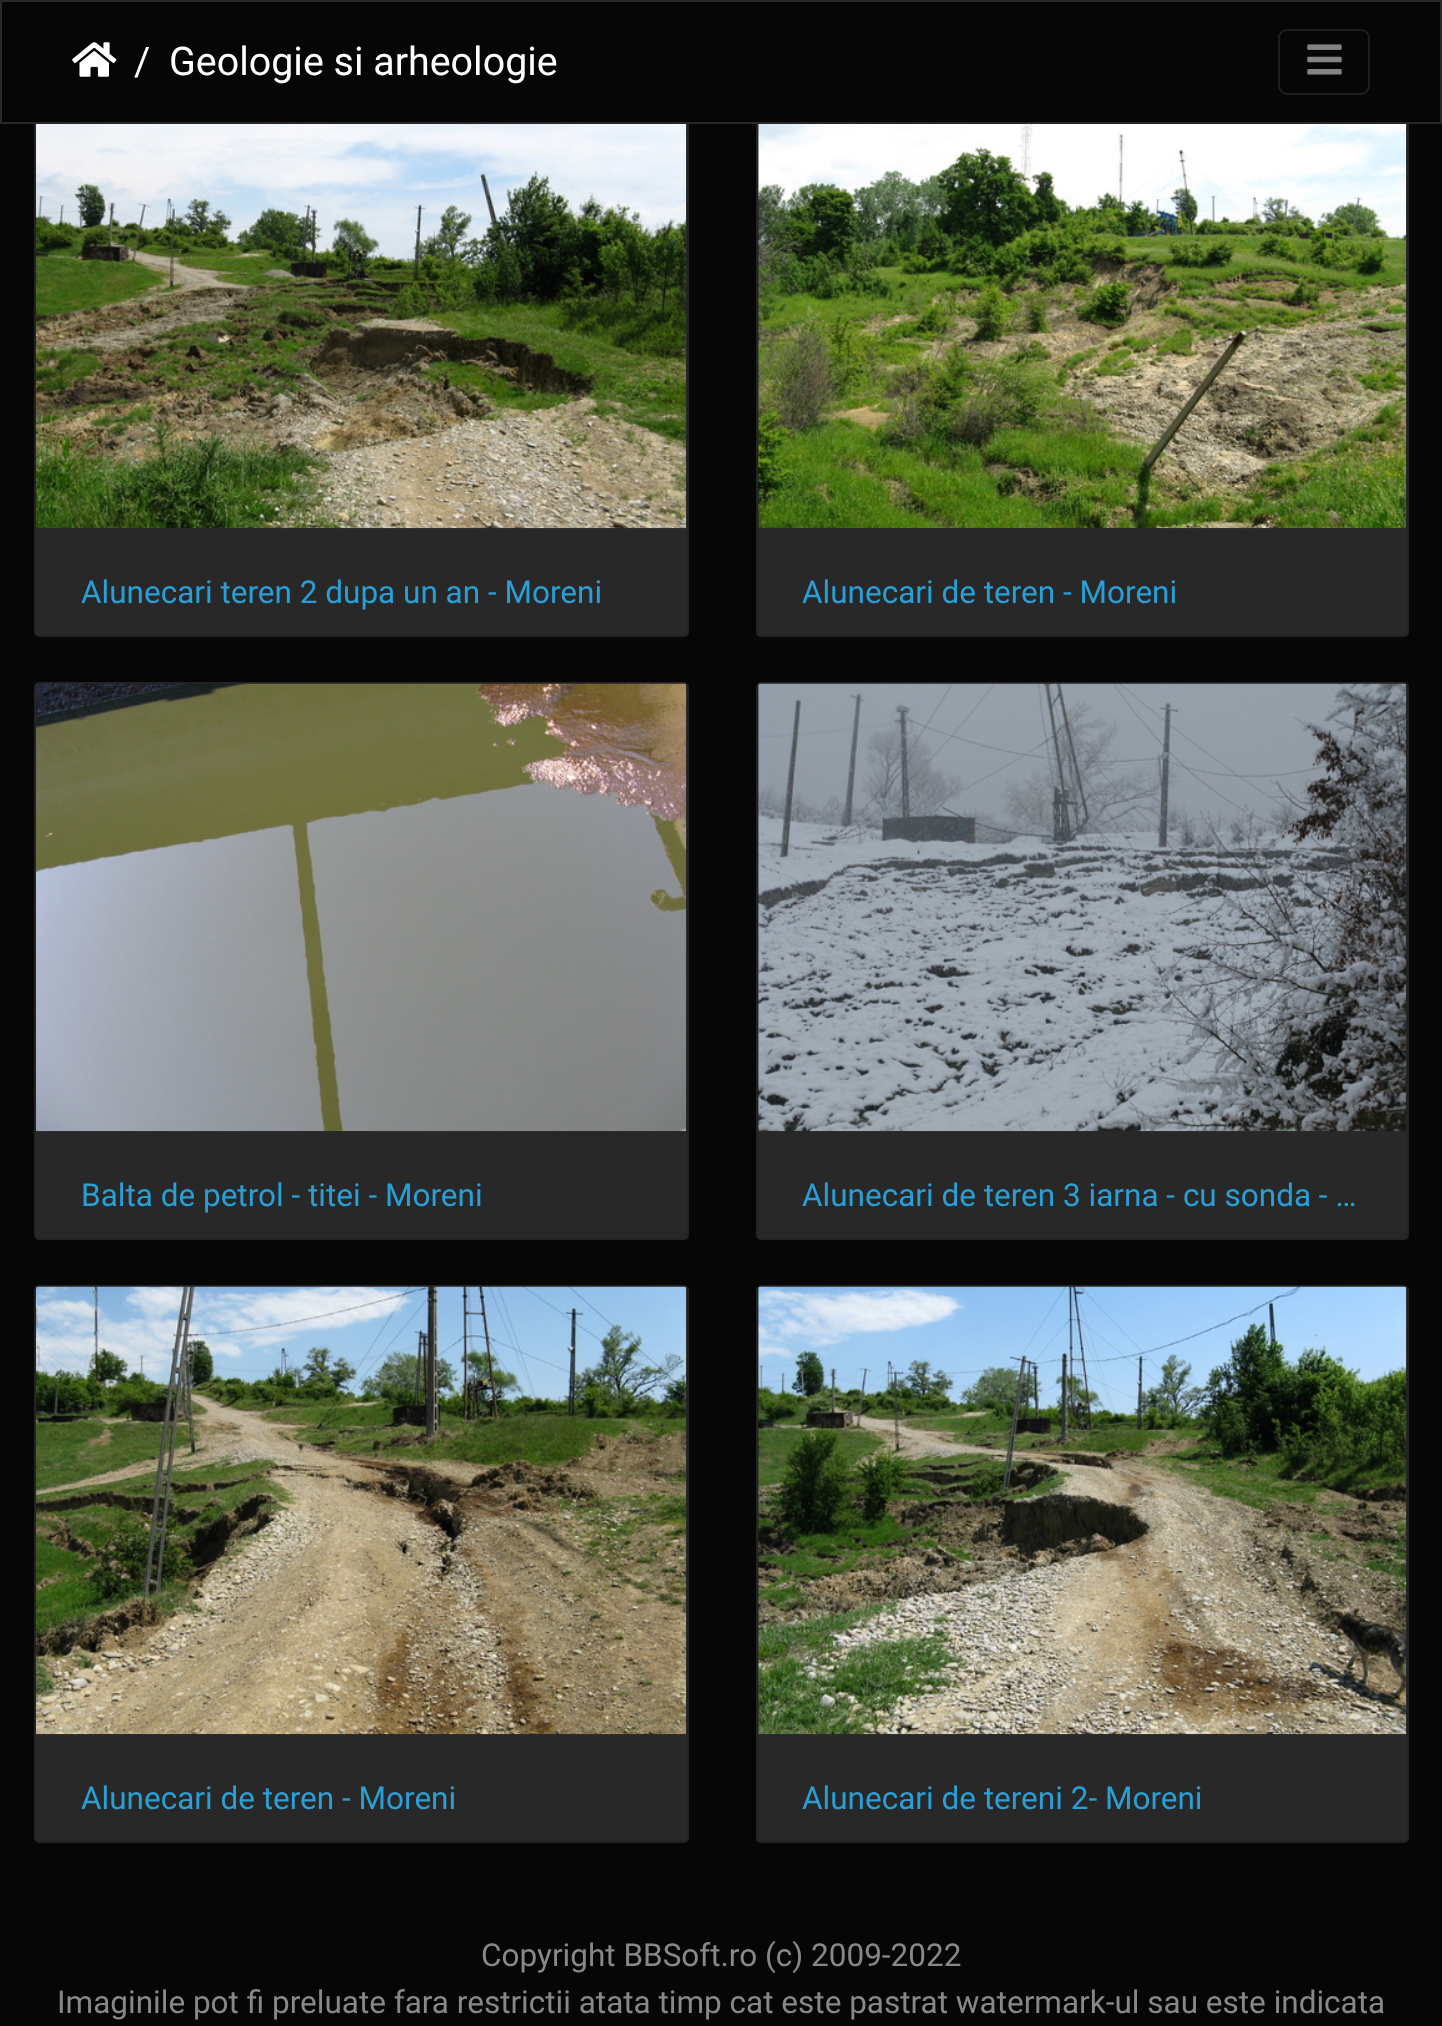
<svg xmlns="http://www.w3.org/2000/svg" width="1442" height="2026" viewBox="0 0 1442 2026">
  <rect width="100%" height="100%" fill="rgb(6,6,6)"/>
  <rect x="34" y="79" width="655" height="558" rx="5" fill="rgb(40,40,40)"/>
  <rect x="35" y="80" width="653" height="556" rx="4" fill="none" stroke="rgba(0,0,0,0.12)" stroke-width="2"/>
  <rect x="756" y="79" width="653" height="558" rx="5" fill="rgb(40,40,40)"/>
  <rect x="757" y="80" width="651" height="556" rx="4" fill="none" stroke="rgba(0,0,0,0.12)" stroke-width="2"/>
  <rect x="34" y="79" width="1375" height="43" fill="rgb(6,6,6)"/>
  <rect x="1" y="1" width="1440" height="122" fill="none" stroke="rgb(40,40,40)" stroke-width="2"/>
  <image x="72" y="42" width="45" height="35" href="pic1.png"/>
  <g font-family="Roboto" font-size="39.4" fill="rgb(255,255,255)">
    <text x="134" y="75">/</text>
    <text x="169" y="75">Geologie si arheologie</text>
  </g>
  <rect x="1279" y="30" width="90" height="64" rx="8" fill="none" stroke="rgb(31,31,31)" stroke-width="2"/>
  <image x="1307" y="44" width="35" height="31" href="pic2.png"/>
  <image x="36" y="124" width="651" height="405" href="pic3.png"/>
  <text x="81" y="603" font-family="Roboto" font-size="31.5" fill="rgb(42,159,214)">Alunecari teren 2 dupa un an - Moreni</text>
  <image x="758" y="124" width="649" height="405" href="pic4.png"/>
  <text x="802" y="603" font-family="Roboto" font-size="31.5" fill="rgb(42,159,214)">Alunecari de teren - Moreni</text>
  <rect x="34" y="682" width="655" height="558" rx="5" fill="rgb(40,40,40)"/>
  <rect x="35" y="683" width="653" height="556" rx="4" fill="none" stroke="rgba(0,0,0,0.12)" stroke-width="2"/>
  <image x="36" y="683" width="651" height="449" href="pic5.png"/>
  <text x="81" y="1206" font-family="Roboto" font-size="31.5" fill="rgb(42,159,214)">Balta de petrol - titei - Moreni</text>
  <rect x="756" y="682" width="653" height="558" rx="5" fill="rgb(40,40,40)"/>
  <rect x="757" y="683" width="651" height="556" rx="4" fill="none" stroke="rgba(0,0,0,0.12)" stroke-width="2"/>
  <image x="758" y="683" width="649" height="449" href="pic6.png"/>
  <text x="802" y="1206" font-family="Roboto" font-size="31.5" fill="rgb(42,159,214)">Alunecari de teren 3 iarna - cu sonda - …</text>
  <rect x="34" y="1285" width="655" height="558" rx="5" fill="rgb(40,40,40)"/>
  <rect x="35" y="1286" width="653" height="556" rx="4" fill="none" stroke="rgba(0,0,0,0.12)" stroke-width="2"/>
  <image x="36" y="1286" width="651" height="449" href="pic7.png"/>
  <text x="81" y="1809" font-family="Roboto" font-size="31.5" fill="rgb(42,159,214)">Alunecari de teren - Moreni</text>
  <rect x="756" y="1285" width="653" height="558" rx="5" fill="rgb(40,40,40)"/>
  <rect x="757" y="1286" width="651" height="556" rx="4" fill="none" stroke="rgba(0,0,0,0.12)" stroke-width="2"/>
  <image x="758" y="1286" width="649" height="449" href="pic8.png"/>
  <text x="802" y="1809" font-family="Roboto" font-size="31.5" fill="rgb(42,159,214)">Alunecari de tereni 2- Moreni</text>
  <g font-family="Roboto" font-size="31.5" fill="rgb(136,136,136)">
    <text x="481" y="1966">Copyright BBSoft.ro (c) 2009-2022</text>
    <text x="57" y="2013">Imaginile pot fi preluate fara restrictii atata timp cat este pastrat watermark-ul sau este indicata</text>
  </g>
</svg>
